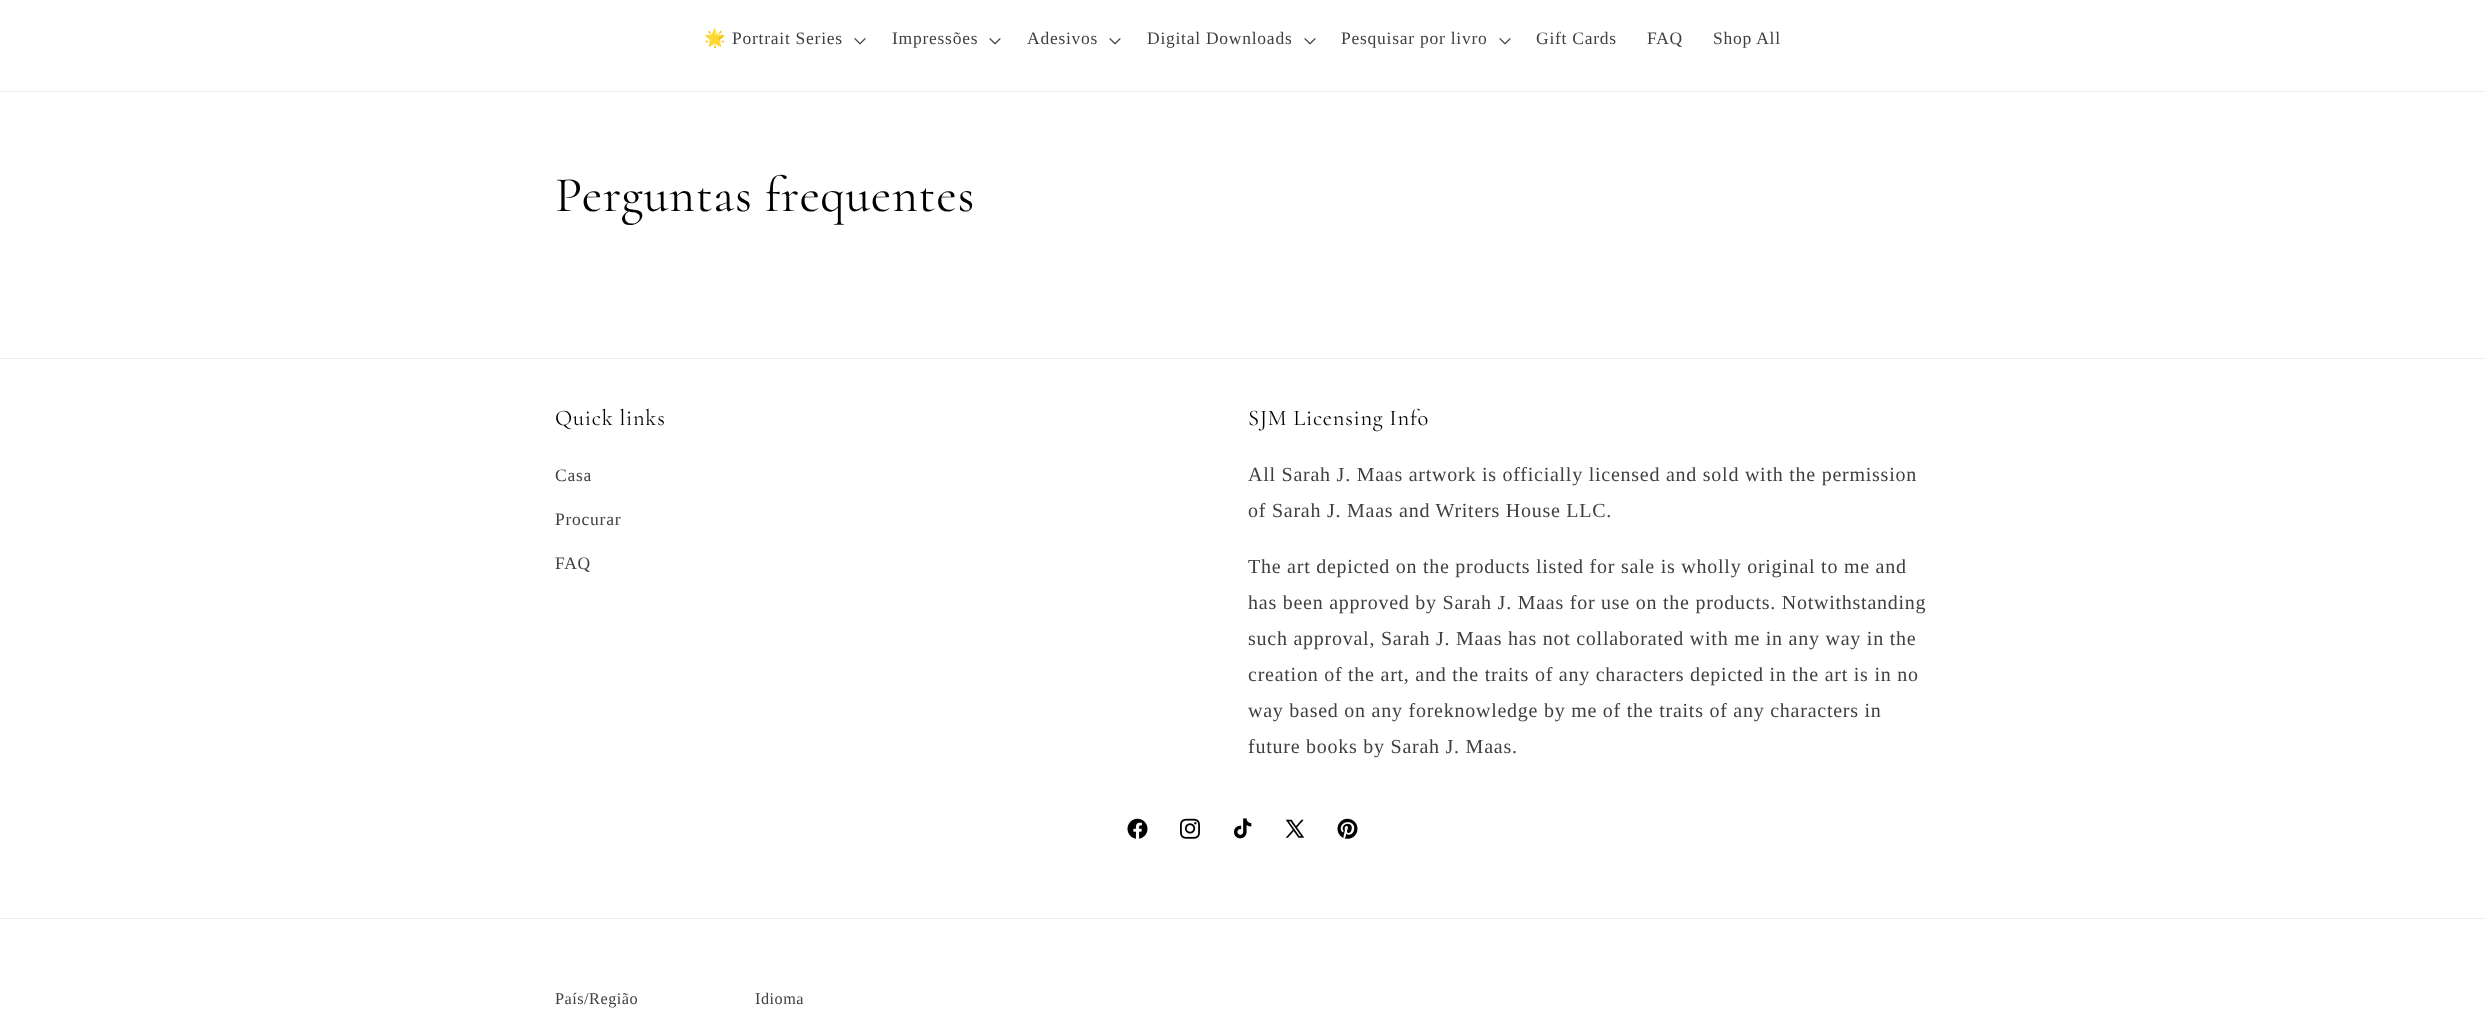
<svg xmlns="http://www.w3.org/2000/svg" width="2485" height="1021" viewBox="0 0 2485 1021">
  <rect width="100%" height="100%" fill="rgb(255,255,255)"/>
  <rect x="0" y="91" width="2485" height="1" fill="rgb(235,235,235)"/>
  <text x="704" y="44" font-family="Noto Color Emoji" font-size="17.5" letter-spacing="0.75" fill="rgb(64,64,64)">🌟</text>
  <text x="732" y="44" font-family="Liberation Serif" font-size="17.5" letter-spacing="0.75" fill="rgb(64,64,64)">Portrait Series</text>
  <image x="854" y="38" width="12" height="7" href="pic1.png"/>
  <text x="892" y="44" font-family="Liberation Serif" font-size="17.5" letter-spacing="0.75" fill="rgb(64,64,64)">Impressões</text>
  <image x="989" y="38" width="12" height="7" href="pic1.png"/>
  <text x="1027" y="44" font-family="Liberation Serif" font-size="17.5" letter-spacing="0.75" fill="rgb(64,64,64)">Adesivos</text>
  <image x="1109" y="38" width="12" height="7" href="pic1.png"/>
  <text x="1147" y="44" font-family="Liberation Serif" font-size="17.5" letter-spacing="0.75" fill="rgb(64,64,64)">Digital Downloads</text>
  <image x="1304" y="38" width="12" height="7" href="pic1.png"/>
  <text x="1341" y="44" font-family="Liberation Serif" font-size="17.5" letter-spacing="0.75" fill="rgb(64,64,64)">Pesquisar por livro</text>
  <image x="1499" y="38" width="12" height="7" href="pic1.png"/>
  <g font-family="Liberation Serif" font-size="17.5" letter-spacing="0.75" fill="rgb(64,64,64)">
    <text x="1536" y="44">Gift Cards</text>
    <text x="1647" y="44">FAQ</text>
    <text x="1713" y="44">Shop All</text>
  </g>
  <text x="555" y="211" font-family="Cormorant" font-size="50" letter-spacing="0.75" fill="rgb(0,0,0)">Perguntas frequentes</text>
  <rect x="0" y="358" width="2485" height="1" fill="rgb(235,235,235)"/>
  <text x="555" y="425" font-family="Cormorant" font-size="22.5" letter-spacing="0.75" fill="rgb(0,0,0)">Quick links</text>
  <g font-family="Liberation Serif" font-size="17.5" letter-spacing="0.75" fill="rgb(64,64,64)">
    <text x="555" y="481">Casa</text>
    <text x="555" y="525">Procurar</text>
    <text x="555" y="569">FAQ</text>
  </g>
  <text x="1248" y="425" font-family="Cormorant" font-size="22.5" letter-spacing="0.75" fill="rgb(0,0,0)">SJM Licensing Info</text>
  <g font-family="Liberation Serif" font-size="20" letter-spacing="0.75" fill="rgb(64,64,64)">
    <text>
      <tspan x="1248" y="481">All Sarah J. Maas artwork is officially licensed and sold with the permission</tspan>
      <tspan x="1248" y="517">of Sarah J. Maas and Writers House LLC.</tspan>
    </text>
    <text>
      <tspan x="1248" y="573">The art depicted on the products listed for sale is wholly original to me and</tspan>
      <tspan x="1248" y="609">has been approved by Sarah J. Maas for use on the products. Notwithstanding</tspan>
      <tspan x="1248" y="645">such approval, Sarah J. Maas has not collaborated with me in any way in the</tspan>
      <tspan x="1248" y="681">creation of the art, and the traits of any characters depicted in the art is in no</tspan>
      <tspan x="1248" y="717">way based on any foreknowledge by me of the traits of any characters in</tspan>
      <tspan x="1248" y="753">future books by Sarah J. Maas.</tspan>
    </text>
  </g>
  <image x="1127" y="818" width="21" height="21" href="pic2.png"/>
  <image x="1180" y="818" width="20" height="21" href="pic3.png"/>
  <image x="1233" y="818" width="19" height="21" href="pic4.png"/>
  <image x="1285" y="819" width="20" height="19" href="pic5.png"/>
  <image x="1337" y="818" width="21" height="21" href="pic6.png"/>
  <rect x="0" y="918" width="2485" height="1" fill="rgb(235,235,235)"/>
  <g font-family="Liberation Serif" font-size="16.25" letter-spacing="0.5" fill="rgb(64,64,64)">
    <text x="555" y="1004">País/Região</text>
    <text x="755" y="1004">Idioma</text>
  </g>
</svg>
